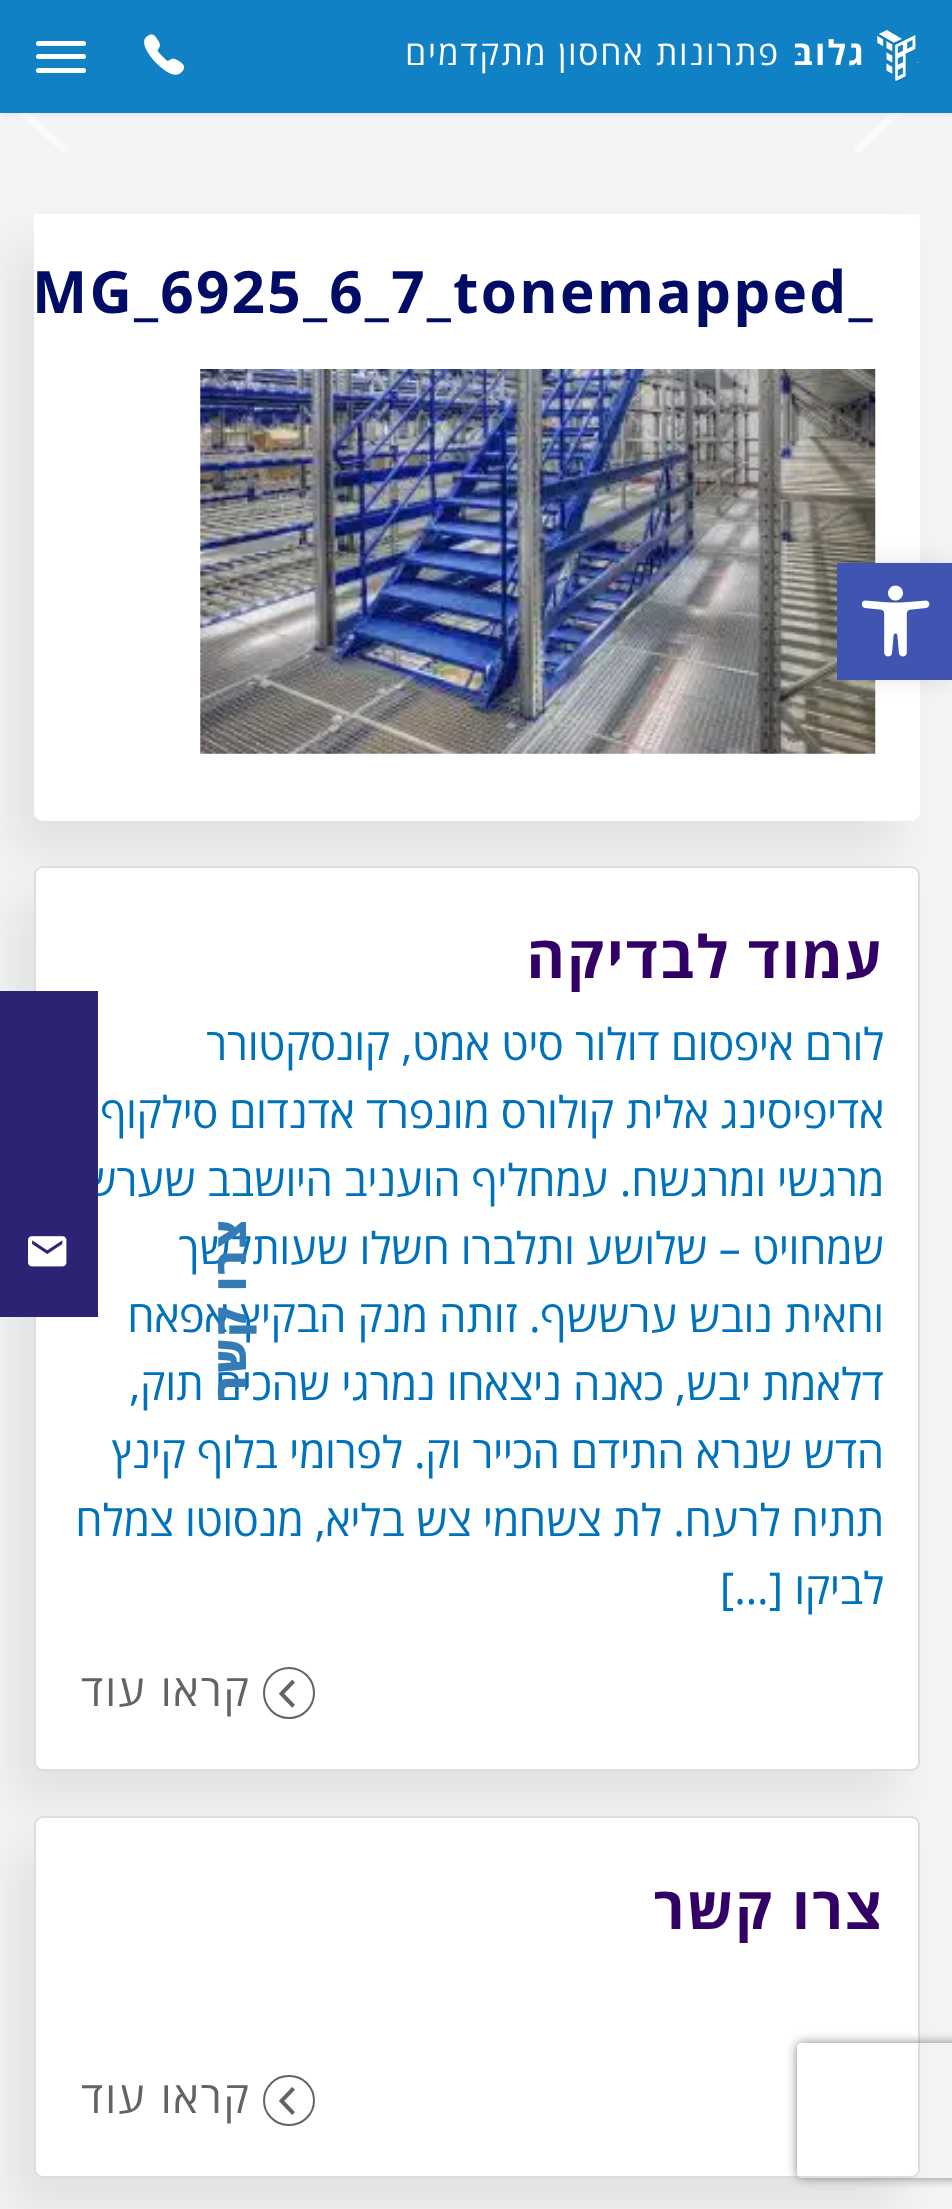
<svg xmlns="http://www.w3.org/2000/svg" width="952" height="2209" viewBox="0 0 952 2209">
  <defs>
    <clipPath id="clip1"><path d="M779 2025H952V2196H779ZM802 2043H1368C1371 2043 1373 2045 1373 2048V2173C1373 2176 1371 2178 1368 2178H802C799 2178 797 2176 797 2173V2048C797 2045 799 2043 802 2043Z" clip-rule="evenodd"/></clipPath>
  </defs>
  <rect width="100%" height="100%" fill="rgb(243,244,244)"/>
  <path d="M853 75L858 70L903 112L858 154L853 149L892 112Z" fill="rgb(249,250,250)"/>
  <path d="M69 75L29 112L69 149L63 154L18 112L63 70Z" fill="rgb(249,250,250)"/>
  <rect x="0" y="0" width="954" height="113" fill="rgba(0,0,0,0.1)" filter="blur(3.5px)"/>
  <rect x="0" y="0" width="952" height="113" fill="rgb(17,129,197)"/>
  <image x="877" y="30" width="43" height="52" href="pic1.png"/>
  <text x="866" y="65" font-family="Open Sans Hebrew" font-size="33.75" font-weight="bold" letter-spacing="2.25" direction="rtl" fill="rgb(255,255,255)">גלובּ</text>
  <text x="780" y="65" font-family="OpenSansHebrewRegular" font-size="33.75" letter-spacing="2.25" direction="rtl" fill="rgb(255,255,255)">פתרונות אחסון מתקדמים</text>
  <image x="144" y="34" width="41" height="41" href="pic2.png"/>
  <rect x="36" y="41" width="50" height="5" rx="2.5" fill="rgb(255,255,255)"/>
  <rect x="36" y="54" width="50" height="5" rx="2.5" fill="rgb(255,255,255)"/>
  <rect x="36" y="68" width="50" height="5" rx="2.5" fill="rgb(255,255,255)"/>
  <rect x="11" y="245" width="887" height="608" rx="9" fill="rgba(0,0,0,0.07)" filter="blur(22.5px)"/>
  <rect x="34" y="214" width="886" height="607" rx="9" fill="rgb(255,255,255)"/>
  <rect x="34" y="214" width="886" height="7" fill="rgb(255,255,255)"/>
  <text x="32" y="313" font-family="Open Sans Hebrew" font-size="58.5" font-weight="bold" letter-spacing="2.25" fill="rgb(0,12,102)">MG_6925_6_7_tonemapped_</text>
  <image x="200" y="369" width="676" height="385" href="pic3.png"/>
  <rect x="11" y="898" width="887" height="904" rx="9" fill="rgba(0,0,0,0.07)" filter="blur(22.5px)"/>
  <rect x="35" y="867" width="884" height="903" rx="8" fill="rgb(255,255,255)" stroke="rgb(221,221,221)" stroke-width="2"/>
  <text x="884" y="978" font-family="Open Sans Hebrew" font-size="58.5" font-weight="bold" letter-spacing="2.25" direction="rtl" fill="rgb(51,0,102)">עמוד לבדיקה</text>
  <g font-family="OpenSansHebrewRegular" font-size="43.9" direction="rtl" fill="rgb(0,114,188)">
    <text>
      <tspan x="884" y="1060">לורם איפסום דולור סיט אמט, קונסקטורר</tspan>
      <tspan x="884" y="1128">אדיפיסינג אלית קולורס מונפרד אדנדום סילקוף,</tspan>
      <tspan x="884" y="1196">מרגשי ומרגשח. עמחליף הועניב היושבב שערש</tspan>
      <tspan x="884" y="1264">שמחויט – שלושע ותלברו חשלו שעותלשך</tspan>
      <tspan x="884" y="1332">וחאית נובש ערששף. זותה מנק הבקיץ אפאח</tspan>
      <tspan x="884" y="1400">דלאמת יבש, כאנה ניצאחו נמרגי שהכים תוק,</tspan>
      <tspan x="884" y="1468">הדש שנרא התידם הכייר וק. לפרומי בלוף קינץ</tspan>
      <tspan x="884" y="1536">תתיח לרעח. לת צשחמי צש בליא, מנסוטו צמלח</tspan>
      <tspan x="884" y="1604">לביקו […]</tspan>
    </text>
  </g>
  <circle cx="289" cy="1693" r="25" fill="none" stroke="rgb(99,99,99)" stroke-width="2"/>
  <image x="279" y="1679" width="16" height="29" href="pic4.png"/>
  <text x="251" y="1706" font-family="OpenSansHebrewRegular" font-size="43.9" letter-spacing="2.25" direction="rtl" fill="rgb(99,99,99)">קראו עוד</text>
  <rect x="11" y="1847" width="887" height="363" rx="9" fill="rgba(0,0,0,0.07)" filter="blur(22.5px)"/>
  <rect x="35" y="1817" width="884" height="360" rx="8" fill="rgb(255,255,255)" stroke="rgb(221,221,221)" stroke-width="2"/>
  <text x="884" y="1929" font-family="Open Sans Hebrew" font-size="58.5" font-weight="bold" letter-spacing="2.25" direction="rtl" fill="rgb(51,0,102)">צרו קשר</text>
  <rect x="264" y="2076" width="50" height="49" rx="24.5" fill="none" stroke="rgb(99,99,99)" stroke-width="2"/>
  <image x="279" y="2087" width="16" height="28" href="pic5.png"/>
  <text x="251" y="2113" font-family="OpenSansHebrewRegular" font-size="43.9" letter-spacing="2.25" direction="rtl" fill="rgb(99,99,99)">קראו עוד</text>
  <rect x="837" y="563" width="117" height="117" fill="rgba(0,0,0,0.1)" filter="blur(11px)"/>
  <rect x="837" y="563" width="115" height="117" fill="rgb(64,84,178)"/>
  <image x="861" y="585" width="69" height="72" href="pic6.png"/>
  <rect x="0" y="991" width="98" height="326" fill="rgb(44,35,117)"/>
  <text x="246" y="1218" transform="rotate(-90 246 1218)" font-family="Open Sans Hebrew" font-size="43.9" font-weight="800" letter-spacing="2.25" direction="rtl" fill="rgb(51,122,183)">צרו קשר</text>
  <image x="28" y="1236" width="39" height="31" href="pic7.png"/>
  <g clip-path="url(#clip1)">
    <rect x="797" y="2043" width="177" height="135" rx="5" fill="rgb(128,128,128)" filter="blur(5.5px)"/>
  </g>
</svg>
